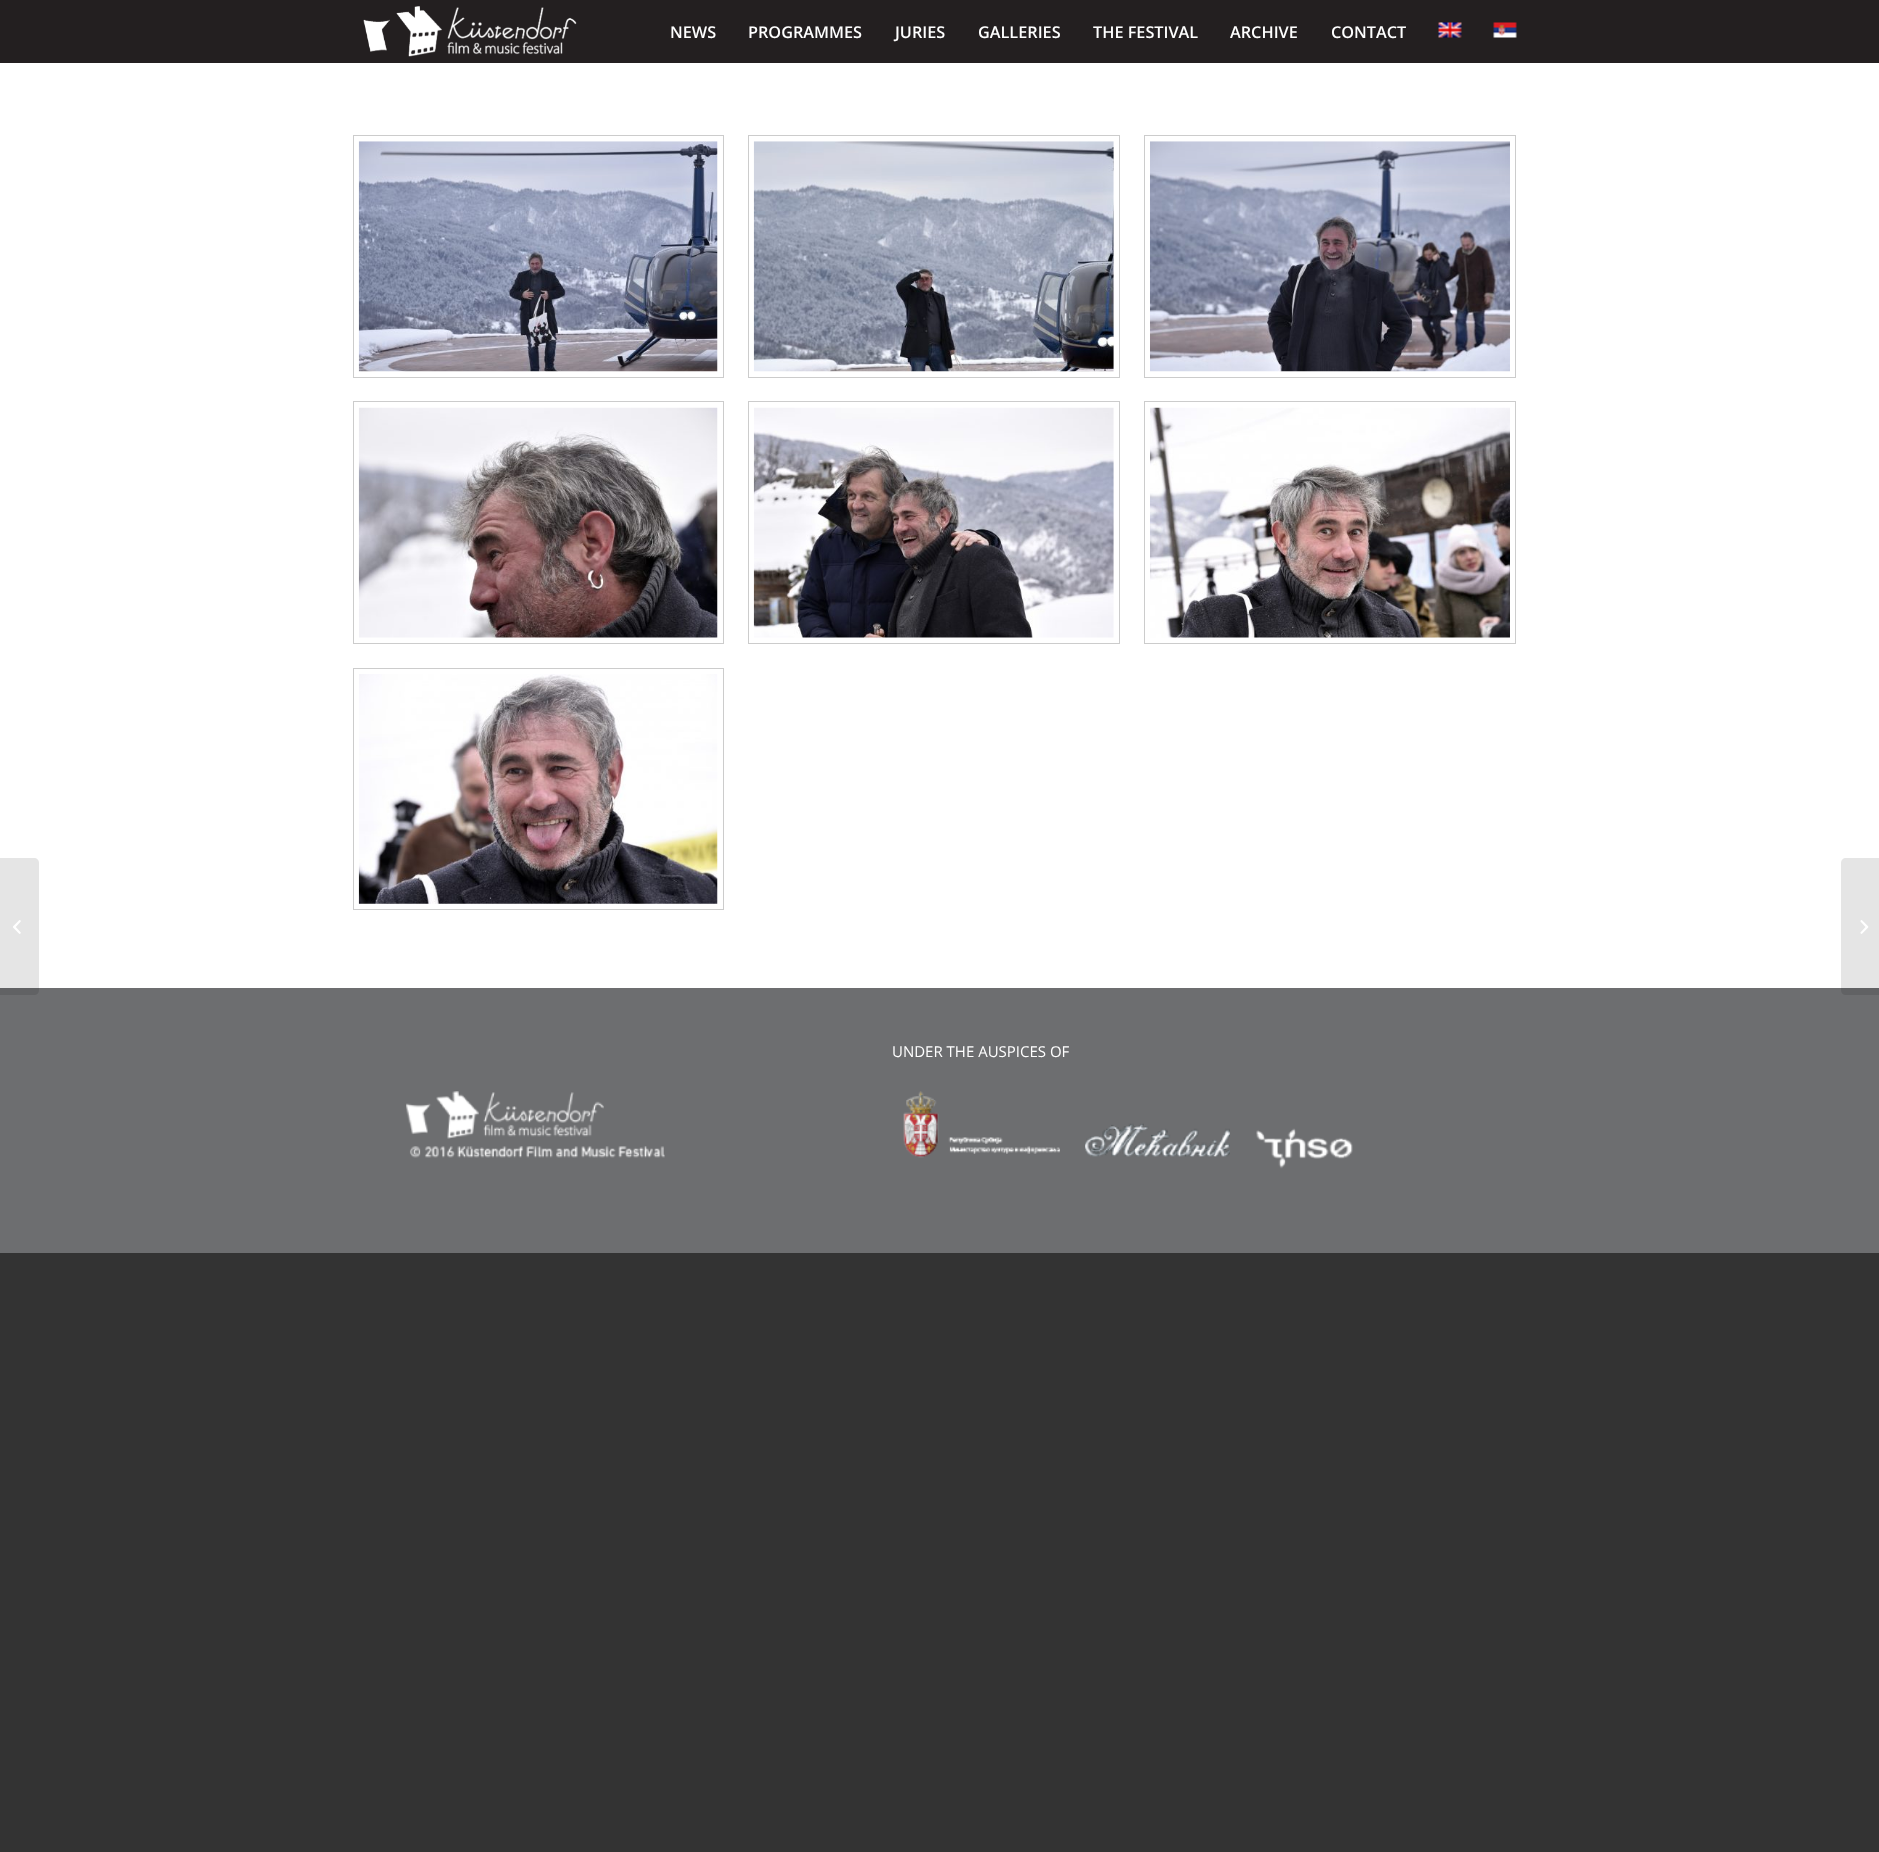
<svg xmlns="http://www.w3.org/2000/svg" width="1879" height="1852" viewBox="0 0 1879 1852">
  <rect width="100%" height="100%" fill="rgb(51,51,51)"/>
  <rect x="0" y="0" width="1879" height="63" fill="rgb(35,31,32)"/>
  <image x="363" y="6" width="214" height="51" href="pic1.png"/>
  <g font-family="Open Sans" font-size="16.25" font-weight="600" fill="rgb(255,255,255)">
    <text x="670" y="38">NEWS</text>
    <text x="748" y="38">PROGRAMMES</text>
    <text x="895" y="38">JURIES</text>
    <text x="978" y="38">GALLERIES</text>
    <text x="1093" y="38">THE FESTIVAL</text>
    <text x="1230" y="38">ARCHIVE</text>
    <text x="1331" y="38">CONTACT</text>
  </g>
  <image x="1438" y="22" width="24" height="16" href="pic2.png"/>
  <image x="1493" y="22" width="24" height="16" href="pic3.png"/>
  <rect x="0" y="63" width="1879" height="925" fill="rgb(255,255,255)"/>
  <rect x="0" y="988" width="1879" height="265" fill="rgb(109,110,112)"/>
  <path d="M0 858H34C37 858 39 860 39 863V990C39 993 37 995 34 995H0Z" fill="rgba(0,0,0,0.1)"/>
  <image x="13" y="920" width="8" height="14" href="pic4.png"/>
  <path d="M1846 858H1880V995H1846C1843 995 1841 993 1841 990V863C1841 860 1843 858 1846 858Z" fill="rgba(0,0,0,0.1)"/>
  <image x="1860" y="920" width="9" height="14" href="pic5.png"/>
  <rect x="353.5" y="135.5" width="370" height="242" fill="none" stroke="rgb(204,204,204)"/>
  <image x="358" y="141" width="360" height="231" href="pic6.png"/>
  <rect x="748.5" y="135.5" width="371" height="242" fill="none" stroke="rgb(204,204,204)"/>
  <image x="753" y="141" width="361" height="231" href="pic7.png"/>
  <rect x="1144.5" y="135.5" width="371" height="242" fill="none" stroke="rgb(204,204,204)"/>
  <image x="1150" y="141" width="360" height="231" href="pic8.png"/>
  <rect x="353.5" y="401.5" width="370" height="242" fill="none" stroke="rgb(204,204,204)"/>
  <image x="358" y="407" width="360" height="231" href="pic9.png"/>
  <rect x="748.5" y="401.5" width="371" height="242" fill="none" stroke="rgb(204,204,204)"/>
  <image x="753" y="407" width="361" height="231" href="pic10.png"/>
  <rect x="1144.5" y="401.5" width="371" height="242" fill="none" stroke="rgb(204,204,204)"/>
  <image x="1150" y="407" width="360" height="231" href="pic11.png"/>
  <rect x="353.5" y="668.5" width="370" height="241" fill="none" stroke="rgb(204,204,204)"/>
  <image x="358" y="674" width="360" height="230" href="pic12.png"/>
  <text x="892" y="1057" font-family="Open Sans" font-size="15" fill="rgb(255,255,255)">UNDER THE AUSPICES OF</text>
  <image x="903" y="1091" width="157" height="67" href="pic13.png"/>
  <image x="1085" y="1123" width="145" height="34" href="pic14.png"/>
  <image x="1256" y="1128" width="97" height="41" href="pic15.png"/>
  <image x="406" y="1091" width="259" height="67" href="pic16.png"/>
</svg>
